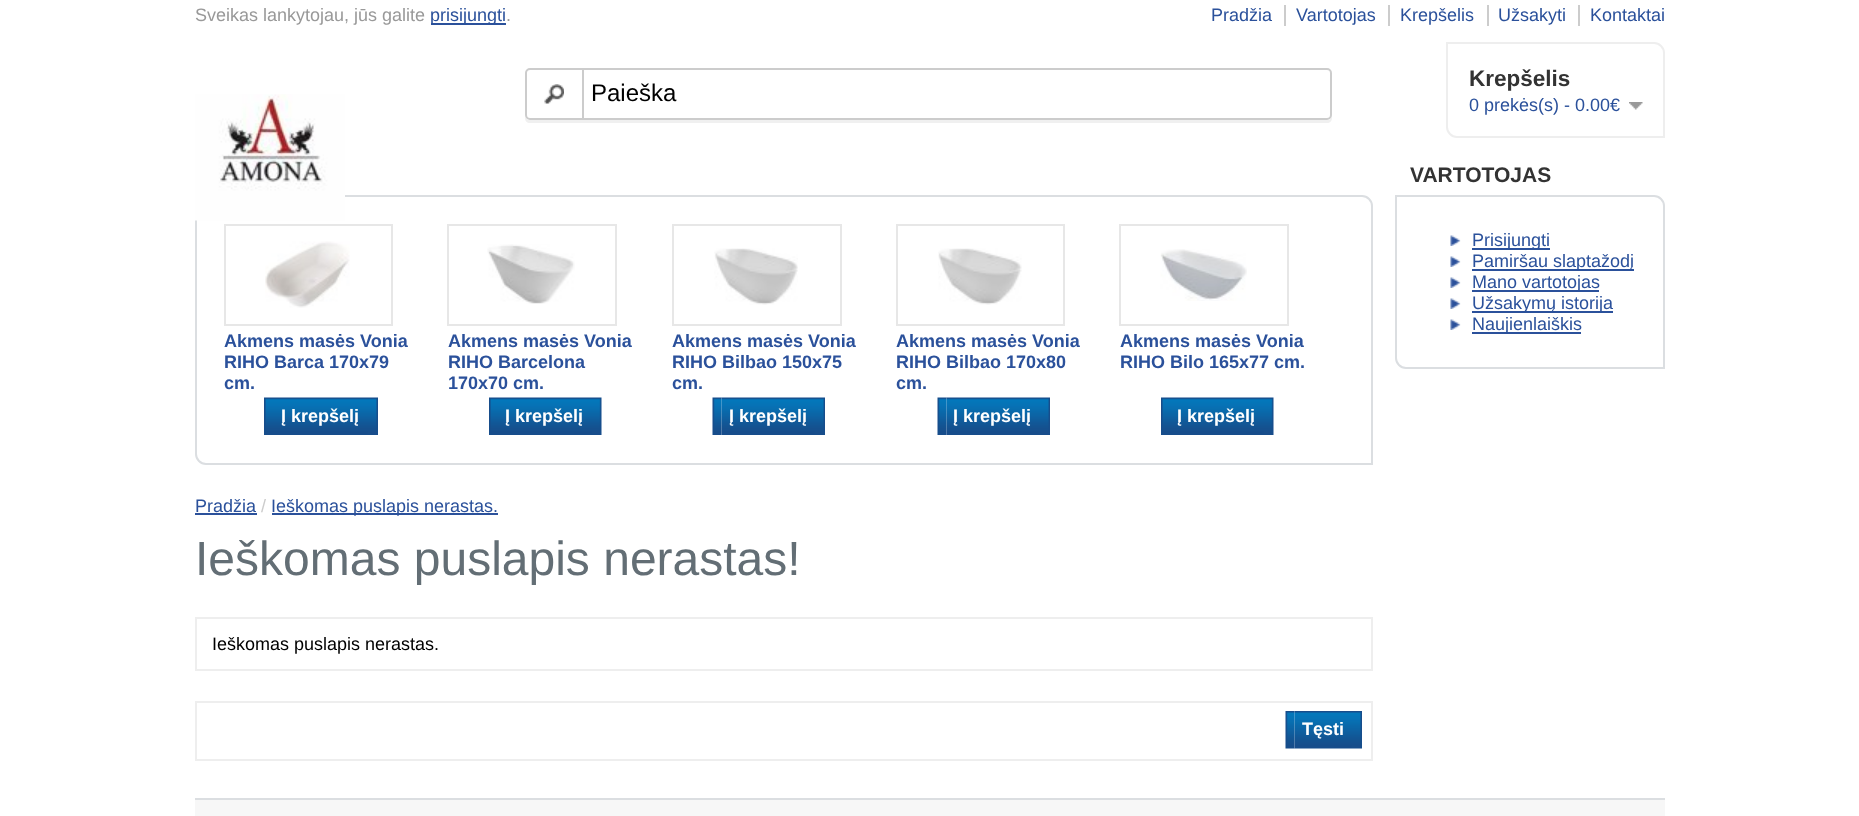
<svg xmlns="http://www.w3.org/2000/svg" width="1859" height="816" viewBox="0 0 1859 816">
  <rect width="100%" height="100%" fill="rgb(255,255,255)"/>
  <text x="195" y="21" font-family="Liberation Sans" font-size="18" fill="rgb(153,153,153)">Sveikas lankytojau, jūs galite</text>
  <rect x="431" y="23" width="75" height="2" fill="rgb(43,81,155)"/>
  <text x="430" y="21" font-family="Liberation Sans" font-size="18" fill="rgb(43,81,155)">prisijungti</text>
  <text x="506" y="21" font-family="Liberation Sans" font-size="18" fill="rgb(153,153,153)">.</text>
  <text x="1211" y="21" font-family="Liberation Sans" font-size="18" fill="rgb(43,81,155)">Pradžia</text>
  <rect x="1284" y="5" width="2" height="21" fill="rgb(204,204,204)"/>
  <text x="1296" y="21" font-family="Liberation Sans" font-size="18" fill="rgb(43,81,155)">Vartotojas</text>
  <rect x="1388" y="5" width="2" height="21" fill="rgb(204,204,204)"/>
  <text x="1400" y="21" font-family="Liberation Sans" font-size="18" fill="rgb(43,81,155)">Krepšelis</text>
  <rect x="1487" y="5" width="2" height="21" fill="rgb(204,204,204)"/>
  <text x="1498" y="21" font-family="Liberation Sans" font-size="18" fill="rgb(43,81,155)">Užsakyti</text>
  <rect x="1578" y="5" width="2" height="21" fill="rgb(204,204,204)"/>
  <text x="1590" y="21" font-family="Liberation Sans" font-size="18" fill="rgb(43,81,155)">Kontaktai</text>
  <path d="M196 196H1362C1367.5 196 1372 200.5 1372 206V464H206C200.5 464 196 459.5 196 454Z" fill="none" stroke="rgb(219,222,225)" stroke-width="2"/>
  <image x="195" y="94" width="150" height="127" href="pic1.png"/>
  <path d="M525 116V118C525 121 527 123 530 123H1327C1330 123 1332 121 1332 118V116C1332 118 1330 120 1328 120H530C527 120 525 118 525 116Z" fill="rgb(240,240,240)"/>
  <rect x="526" y="69" width="805" height="50" rx="4" fill="none" stroke="rgb(204,204,204)" stroke-width="2"/>
  <image x="544" y="84" width="20" height="20" href="pic2.png"/>
  <rect x="582" y="68" width="2" height="51" fill="rgb(204,204,204)"/>
  <text x="591" y="101" font-family="Liberation Sans" font-size="24" fill="rgb(0,0,0)">Paieška</text>
  <path d="M1447 43H1654C1659.5 43 1664 47.5 1664 53V137H1457C1451.5 137 1447 132.5 1447 127Z" fill="none" stroke="rgb(238,238,238)" stroke-width="2"/>
  <text x="1469" y="86" font-family="Liberation Sans" font-size="22.5" font-weight="bold" fill="rgb(51,51,51)">Krepšelis</text>
  <text x="1469" y="111" font-family="Liberation Sans" font-size="18" fill="rgb(43,81,155)">0 prekės(s) - 0.00€</text>
  <image x="1629" y="102" width="14" height="8" href="pic3.png"/>
  <text x="1410" y="182" font-family="Liberation Sans" font-size="21" font-weight="bold" fill="rgb(51,51,51)">VARTOTOJAS</text>
  <path d="M1396 196H1654C1659.5 196 1664 200.5 1664 206V368H1406C1400.5 368 1396 363.5 1396 358Z" fill="none" stroke="rgb(219,222,225)" stroke-width="2"/>
  <image x="1450" y="235" width="11" height="11" href="pic4.png"/>
  <rect x="1472" y="248" width="78" height="2" fill="rgb(43,81,155)"/>
  <text x="1472" y="246" font-family="Liberation Sans" font-size="18" fill="rgb(43,81,155)">Prisijungti</text>
  <image x="1450" y="256" width="11" height="11" href="pic4.png"/>
  <rect x="1472" y="269" width="162" height="2" fill="rgb(43,81,155)"/>
  <text x="1472" y="267" font-family="Liberation Sans" font-size="18" fill="rgb(43,81,155)">Pamiršau slaptažodį</text>
  <image x="1450" y="277" width="11" height="11" href="pic4.png"/>
  <rect x="1472" y="290" width="127" height="2" fill="rgb(43,81,155)"/>
  <text x="1472" y="288" font-family="Liberation Sans" font-size="18" fill="rgb(43,81,155)">Mano vartotojas</text>
  <image x="1450" y="298" width="11" height="11" href="pic4.png"/>
  <rect x="1472" y="311" width="141" height="2" fill="rgb(43,81,155)"/>
  <text x="1472" y="309" font-family="Liberation Sans" font-size="18" fill="rgb(43,81,155)">Užsakymų istorija</text>
  <image x="1450" y="319" width="11" height="11" href="pic4.png"/>
  <rect x="1472" y="332" width="109" height="2" fill="rgb(43,81,155)"/>
  <text x="1472" y="330" font-family="Liberation Sans" font-size="18" fill="rgb(43,81,155)">Naujienlaiškis</text>
  <rect x="225" y="225" width="167" height="100" fill="none" stroke="rgb(231,231,231)" stroke-width="2"/>
  <image x="265" y="241" width="85" height="67" href="pic5.png"/>
  <g font-family="Liberation Sans" font-size="18" font-weight="bold" fill="rgb(43,81,155)">
    <text>
      <tspan x="224" y="347">Akmens masės Vonia</tspan>
      <tspan x="224" y="368">RIHO Barca 170x79</tspan>
      <tspan x="224" y="389">cm.</tspan>
    </text>
  </g>
  <image x="264" y="397" width="9" height="38" href="pic6.png"/>
  <image x="273" y="397" width="105" height="38" href="pic7.png"/>
  <text x="281" y="422" font-family="Liberation Sans" font-size="18" font-weight="bold" fill="rgb(255,255,255)">Į krepšelį</text>
  <rect x="448" y="225" width="168" height="100" fill="none" stroke="rgb(231,231,231)" stroke-width="2"/>
  <image x="487" y="244" width="88" height="60" href="pic8.png"/>
  <g font-family="Liberation Sans" font-size="18" font-weight="bold" fill="rgb(43,81,155)">
    <text>
      <tspan x="448" y="347">Akmens masės Vonia</tspan>
      <tspan x="448" y="368">RIHO Barcelona</tspan>
      <tspan x="448" y="389">170x70 cm.</tspan>
    </text>
  </g>
  <image x="489" y="397" width="9" height="38" href="pic6.png"/>
  <image x="498" y="397" width="104" height="38" href="pic9.png"/>
  <text x="505" y="422" font-family="Liberation Sans" font-size="18" font-weight="bold" fill="rgb(255,255,255)">Į krepšelį</text>
  <rect x="673" y="225" width="168" height="100" fill="none" stroke="rgb(231,231,231)" stroke-width="2"/>
  <image x="714" y="248" width="84" height="57" href="pic10.png"/>
  <g font-family="Liberation Sans" font-size="18" font-weight="bold" fill="rgb(43,81,155)">
    <text>
      <tspan x="672" y="347">Akmens masės Vonia</tspan>
      <tspan x="672" y="368">RIHO Bilbao 150x75</tspan>
      <tspan x="672" y="389">cm.</tspan>
    </text>
  </g>
  <image x="712" y="397" width="10" height="38" href="pic11.png"/>
  <image x="721" y="397" width="104" height="38" href="pic12.png"/>
  <text x="729" y="422" font-family="Liberation Sans" font-size="18" font-weight="bold" fill="rgb(255,255,255)">Į krepšelį</text>
  <rect x="897" y="225" width="167" height="100" fill="none" stroke="rgb(231,231,231)" stroke-width="2"/>
  <image x="938" y="248" width="84" height="57" href="pic13.png"/>
  <g font-family="Liberation Sans" font-size="18" font-weight="bold" fill="rgb(43,81,155)">
    <text>
      <tspan x="896" y="347">Akmens masės Vonia</tspan>
      <tspan x="896" y="368">RIHO Bilbao 170x80</tspan>
      <tspan x="896" y="389">cm.</tspan>
    </text>
  </g>
  <image x="937" y="397" width="10" height="38" href="pic11.png"/>
  <image x="946" y="397" width="104" height="38" href="pic12.png"/>
  <text x="953" y="422" font-family="Liberation Sans" font-size="18" font-weight="bold" fill="rgb(255,255,255)">Į krepšelį</text>
  <rect x="1120" y="225" width="168" height="100" fill="none" stroke="rgb(231,231,231)" stroke-width="2"/>
  <image x="1160" y="249" width="87" height="52" href="pic14.png"/>
  <g font-family="Liberation Sans" font-size="18" font-weight="bold" fill="rgb(43,81,155)">
    <text>
      <tspan x="1120" y="347">Akmens masės Vonia</tspan>
      <tspan x="1120" y="368">RIHO Bilo 165x77 cm.</tspan>
    </text>
  </g>
  <image x="1161" y="397" width="9" height="38" href="pic6.png"/>
  <image x="1170" y="397" width="104" height="38" href="pic9.png"/>
  <text x="1177" y="422" font-family="Liberation Sans" font-size="18" font-weight="bold" fill="rgb(255,255,255)">Į krepšelį</text>
  <text x="195" y="512" font-family="Liberation Sans" font-size="18" fill="rgb(43,81,155)">Pradžia</text>
  <rect x="195" y="513" width="62" height="2" fill="rgb(43,81,155)"/>
  <text x="261" y="512" font-family="Liberation Sans" font-size="18" fill="rgb(204,204,204)">/</text>
  <rect x="272" y="513" width="226" height="2" fill="rgb(43,81,155)"/>
  <text x="271" y="512" font-family="Liberation Sans" font-size="18" fill="rgb(43,81,155)">Ieškomas puslapis nerastas.</text>
  <text x="195" y="575" font-family="Liberation Sans" font-size="48" fill="rgb(99,110,117)">Ieškomas puslapis nerastas!</text>
  <rect x="196" y="618" width="1176" height="52" fill="none" stroke="rgb(238,238,238)" stroke-width="2"/>
  <text x="212" y="650" font-family="Liberation Sans" font-size="18" fill="rgb(0,0,0)">Ieškomas puslapis nerastas.</text>
  <rect x="196" y="702" width="1176" height="58" fill="none" stroke="rgb(238,238,238)" stroke-width="2"/>
  <image x="1285" y="711" width="10" height="38" href="pic15.png"/>
  <image x="1294" y="711" width="68" height="38" href="pic16.png"/>
  <text x="1302" y="735" font-family="Liberation Sans" font-size="18" font-weight="bold" fill="rgb(255,255,255)">Tęsti</text>
  <rect x="195" y="800" width="1470" height="16" fill="rgb(247,247,247)"/>
  <rect x="195" y="798" width="1470" height="2" fill="rgb(219,222,225)"/>
</svg>
